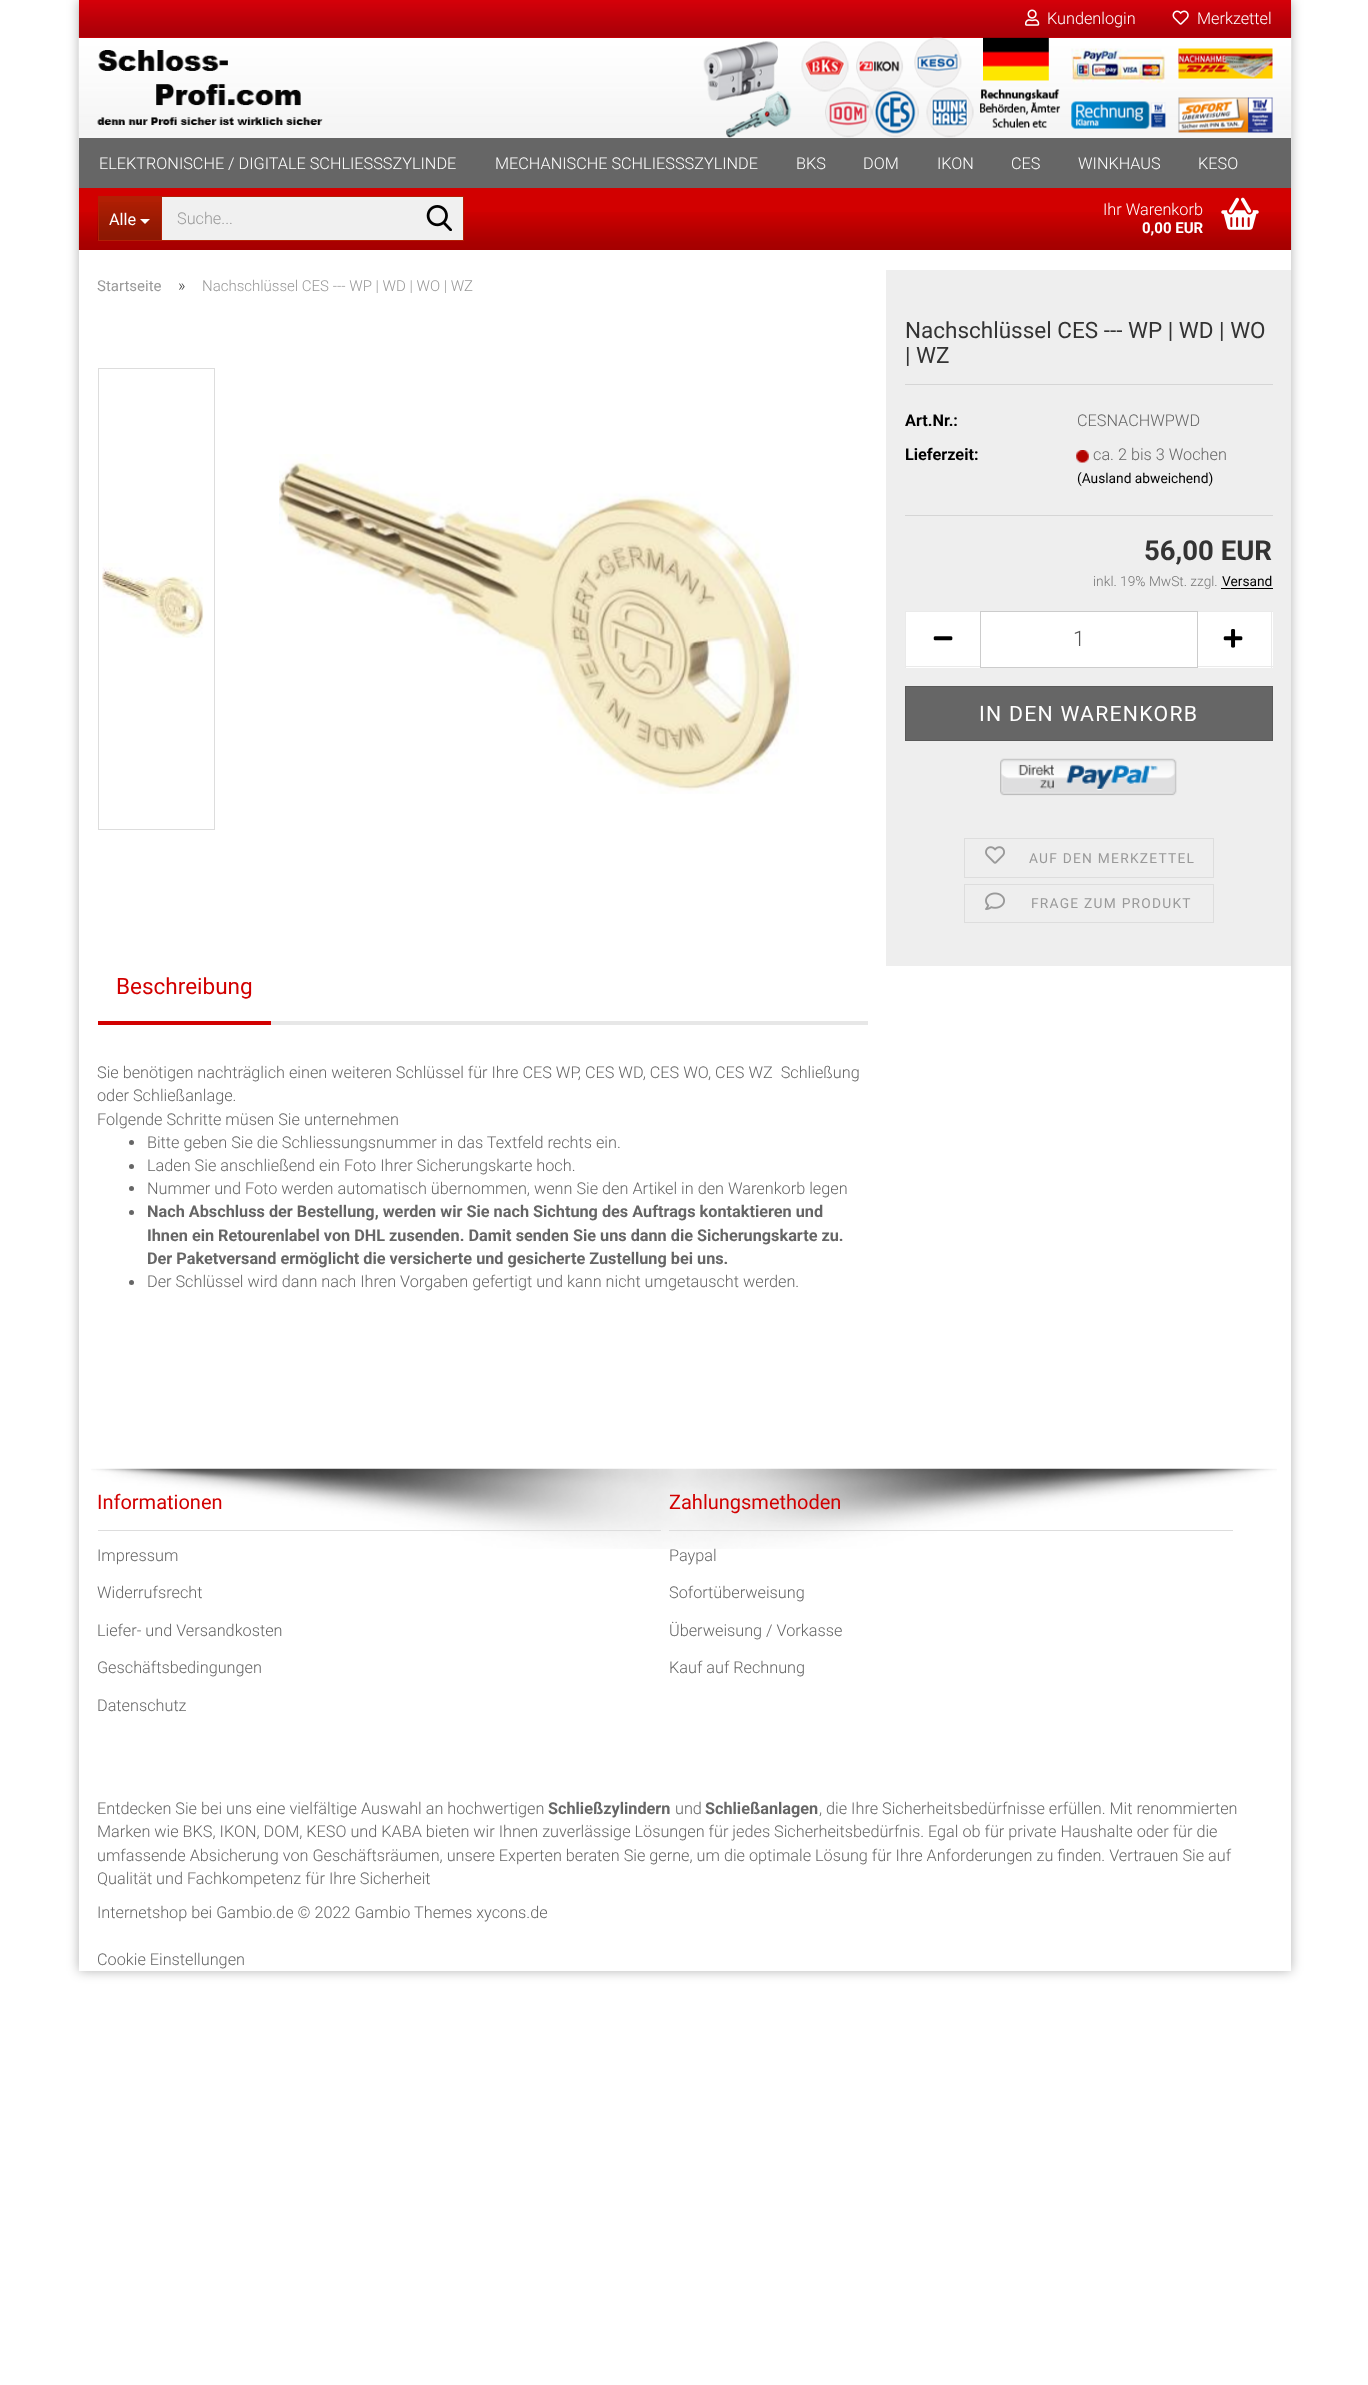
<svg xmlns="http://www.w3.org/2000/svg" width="1368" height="2385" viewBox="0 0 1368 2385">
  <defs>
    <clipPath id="clip1"><path d="M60 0H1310V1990H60ZM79 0H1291V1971H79Z" clip-rule="evenodd"/></clipPath>
  </defs>
  <rect width="100%" height="100%" fill="rgb(255,255,255)"/>
  <g clip-path="url(#clip1)">
    <rect x="79" y="0" width="1212" height="1971" fill="rgba(0,0,0,0.3)" filter="blur(6px)"/>
  </g>
  <image x="78" y="38" width="1214" height="112" href="pic1.png"/>
  <rect x="79" y="0" width="1212" height="38" fill="rgb(218,0,10)"/>
  <image x="78" y="0" width="1214" height="38" href="pic2.png"/>
  <image x="1025" y="9" width="15" height="17" href="pic3.png"/>
  <text x="1047" y="24" font-family="Roboto" font-size="16.25" font-weight="300" fill="rgb(255,255,255)">Kundenlogin</text>
  <image x="1172" y="10" width="17" height="15" href="pic4.png"/>
  <text x="1197" y="24" font-family="Roboto" font-size="16.25" font-weight="300" fill="rgb(255,255,255)">Merkzettel</text>
  <rect x="79" y="138" width="1212" height="50" fill="rgb(102,102,102)"/>
  <g font-family="Roboto" font-size="16.25" font-weight="300" fill="rgb(255,255,255)">
    <text x="99" y="169">ELEKTRONISCHE / DIGITALE SCHLIESSSZYLINDE</text>
    <text x="495" y="169">MECHANISCHE SCHLIESSSZYLINDE</text>
    <text x="796" y="169">BKS</text>
    <text x="863" y="169">DOM</text>
    <text x="937" y="169">IKON</text>
    <text x="1011" y="169">CES</text>
    <text x="1078" y="169">WINKHAUS</text>
    <text x="1198" y="169">KESO</text>
  </g>
  <image x="97" y="50" width="226" height="75" href="pic5.png"/>
  <image x="703" y="37" width="570" height="101" href="pic6.png"/>
  <rect x="79" y="188" width="1212" height="62" fill="rgb(210,0,0)"/>
  <image x="78" y="212" width="1214" height="38" href="pic10.png"/>
  <rect x="99" y="196" width="62" height="45" fill="rgb(178,31,4)"/>
  <image x="97" y="202" width="64" height="38" href="pic7.png"/>
  <rect x="98" y="196" width="1" height="45" fill="rgb(178,31,4)"/>
  <text x="109" y="225" font-family="Roboto" font-size="16.25" fill="rgb(255,255,255)">Alle</text>
  <path d="M140 219H150L145 224Z" fill="rgb(255,255,255)"/>
  <rect x="161.5" y="196.5" width="302" height="44" fill="rgb(240,240,240)" stroke="rgb(178,31,4)"/>
  <text x="177" y="224" font-family="Roboto" font-size="16.25" font-weight="300" fill="rgb(153,153,153)">Suche...</text>
  <image x="426" y="205" width="26" height="26" href="pic8.png"/>
  <text x="1103" y="215" font-family="Roboto" font-size="16.25" font-weight="300" fill="rgb(255,255,255)">Ihr Warenkorb</text>
  <text x="1142" y="233" font-family="Roboto" font-size="15" font-weight="bold" fill="rgb(255,255,255)">0,00 EUR</text>
  <image x="1221" y="197" width="38" height="33" href="pic9.png"/>
  <text x="97" y="291" font-family="Roboto" font-size="15" fill="rgb(153,153,153)">Startseite</text>
  <text x="178" y="291" font-family="Roboto" font-size="16.25" font-weight="300" fill="rgb(68,68,68)">»</text>
  <text x="202" y="291" font-family="Roboto" font-size="15" font-weight="300" fill="rgb(153,153,153)">Nachschlüssel CES --- WP | WD | WO | WZ</text>
  <rect x="98.5" y="368.5" width="116" height="461" fill="none" stroke="rgb(221,221,221)"/>
  <image x="102" y="563" width="102" height="75" href="pic11.png"/>
  <image x="279" y="454" width="520" height="340" href="pic12.png"/>
  <rect x="886" y="270" width="405" height="696" fill="rgb(238,238,238)"/>
  <rect x="905" y="384" width="368" height="1" fill="rgb(213,213,213)"/>
  <g font-family="Roboto" font-size="22.5" fill="rgb(51,51,51)">
    <text>
      <tspan x="905" y="338">Nachschlüssel CES --- WP | WD | WO</tspan>
      <tspan x="905" y="363">| WZ</tspan>
    </text>
  </g>
  <rect x="905" y="515" width="368" height="1" fill="rgb(213,213,213)"/>
  <text x="905" y="426" font-family="Roboto" font-size="16.25" font-weight="bold" fill="rgb(0,0,0)">Art.Nr.:</text>
  <text x="1077" y="426" font-family="Roboto" font-size="16.25" font-weight="300" fill="rgb(102,102,102)">CESNACHWPWD</text>
  <text x="905" y="460" font-family="Roboto" font-size="16.25" font-weight="bold" fill="rgb(0,0,0)">Lieferzeit:</text>
  <image x="1076" y="450" width="13" height="13" href="pic13.png"/>
  <text x="1093" y="460" font-family="Roboto" font-size="16.25" font-weight="300" fill="rgb(102,102,102)">ca. 2 bis 3 Wochen</text>
  <text x="1077" y="483" font-family="Roboto" font-size="13.75" fill="rgb(0,0,0)">(Ausland abweichend)</text>
  <text x="1144" y="560" font-family="Roboto" font-size="27.5" font-weight="bold" fill="rgb(51,51,51)">56,00 EUR</text>
  <text x="1093" y="586" font-family="Roboto" font-size="13.75" font-weight="300" fill="rgb(119,119,119)">inkl. 19% MwSt. zzgl.</text>
  <text x="1222" y="586" font-family="Roboto" font-size="13.75" fill="rgb(0,0,0)">Versand</text>
  <rect x="1221" y="588" width="52" height="1" fill="rgb(0,0,0)"/>
  <rect x="906" y="612" width="74" height="56" fill="rgb(255,255,255)"/>
  <rect x="905" y="611" width="75" height="1" fill="rgb(234,234,234)"/>
  <rect x="905" y="666" width="75" height="1" fill="rgb(234,234,234)"/>
  <rect x="905" y="611" width="1" height="57" fill="rgb(234,234,234)"/>
  <image x="933" y="636" width="20" height="5" href="pic14.png"/>
  <rect x="980.5" y="611.5" width="217" height="56" fill="rgb(255,255,255)" stroke="rgb(204,204,204)"/>
  <text x="1073" y="646" font-family="Roboto" font-size="21.25" font-weight="300" fill="rgb(85,85,85)">1</text>
  <rect x="1198" y="612" width="75" height="56" fill="rgb(255,255,255)"/>
  <rect x="1198" y="611" width="75" height="1" fill="rgb(234,234,234)"/>
  <rect x="1271" y="611" width="1" height="57" fill="rgb(234,234,234)"/>
  <rect x="1198" y="666" width="75" height="1" fill="rgb(234,234,234)"/>
  <image x="1223" y="629" width="20" height="19" href="pic15.png"/>
  <rect x="905.5" y="686.5" width="367" height="54" fill="rgb(102,102,102)" stroke="rgb(89,89,89)"/>
  <text x="979" y="721" font-family="Roboto" font-size="21.25" letter-spacing="1.25" fill="rgb(255,255,255)">IN DEN WARENKORB</text>
  <image x="1000" y="758" width="177" height="38" href="pic16.png"/>
  <rect x="964.5" y="838.5" width="249" height="39" fill="none" stroke="rgb(221,221,221)"/>
  <image x="985" y="846" width="20" height="18" href="pic17.png"/>
  <text x="1029" y="863" font-family="Roboto" font-size="13.75" letter-spacing="1.25" fill="rgb(153,153,153)">AUF DEN MERKZETTEL</text>
  <rect x="964.5" y="884.5" width="249" height="38" fill="none" stroke="rgb(221,221,221)"/>
  <image x="985" y="892" width="20" height="18" href="pic18.png"/>
  <text x="1031" y="908" font-family="Roboto" font-size="13.75" letter-spacing="1.25" fill="rgb(153,153,153)">FRAGE ZUM PRODUKT</text>
  <rect x="271" y="1021" width="597" height="4" fill="rgb(231,231,231)"/>
  <rect x="98" y="1021" width="173" height="4" fill="rgb(210,0,0)"/>
  <text x="116" y="994" font-family="Roboto" font-size="22.5" fill="rgb(210,0,0)">Beschreibung</text>
  <g font-family="Roboto" font-size="16.25" font-weight="300" fill="rgb(102,102,102)">
    <text xml:space="preserve"><tspan x="97" y="1078">Sie benötigen nachträglich einen weiteren Schlüssel für Ihre CES WP, CES WD, CES WO, CES WZ  Schließung</tspan><tspan x="97" y="1101">oder Schließanlage.</tspan><tspan x="97" y="1125">Folgende Schritte müsen Sie unternehmen</tspan></text>
  </g>
  <circle cx="131.5" cy="1142.5" r="2.5" fill="rgb(102,102,102)"/>
  <text x="147" y="1148" font-family="Roboto" font-size="16.25" font-weight="300" fill="rgb(102,102,102)">Bitte geben Sie die Schliessungsnummer in das Textfeld rechts ein.</text>
  <circle cx="131.5" cy="1166.5" r="2.5" fill="rgb(102,102,102)"/>
  <text x="147" y="1171" font-family="Roboto" font-size="16.25" font-weight="300" fill="rgb(102,102,102)">Laden Sie anschließend ein Foto Ihrer Sicherungskarte hoch.</text>
  <circle cx="131.5" cy="1188.5" r="2.5" fill="rgb(102,102,102)"/>
  <text x="147" y="1194" font-family="Roboto" font-size="16.25" font-weight="300" fill="rgb(102,102,102)">Nummer und Foto werden automatisch übernommen, wenn Sie den Artikel in den Warenkorb legen</text>
  <circle cx="131.5" cy="1212.5" r="2.5" fill="rgb(102,102,102)"/>
  <g font-family="Roboto" font-size="16.25" font-weight="bold" fill="rgb(102,102,102)">
    <text>
      <tspan x="147" y="1217">Nach Abschluss der Bestellung, werden wir Sie nach Sichtung des Auftrags kontaktieren und</tspan>
      <tspan x="147" y="1241">Ihnen ein Retourenlabel von DHL zusenden. Damit senden Sie uns dann die Sicherungskarte zu.</tspan>
      <tspan x="147" y="1264">Der Paketversand ermöglicht die versicherte und gesicherte Zustellung bei uns.</tspan>
    </text>
  </g>
  <circle cx="131.5" cy="1282.5" r="2.5" fill="rgb(102,102,102)"/>
  <text x="147" y="1287" font-family="Roboto" font-size="16.25" font-weight="300" fill="rgb(102,102,102)">Der Schlüssel wird dann nach Ihren Vorgaben gefertigt und kann nicht umgetauscht werden.</text>
  <image x="91" y="1468" width="1186" height="81" href="pic19.png"/>
  <rect x="98" y="1530" width="563" height="1" fill="rgb(221,221,221)"/>
  <text x="97" y="1509" font-family="Roboto" font-size="20" fill="rgb(210,0,0)">Informationen</text>
  <g font-family="Roboto" font-size="16.25" font-weight="300" fill="rgb(102,102,102)">
    <text x="97" y="1561">Impressum</text>
    <text x="97" y="1598">Widerrufsrecht</text>
    <text x="97" y="1636">Liefer- und Versandkosten</text>
    <text x="97" y="1673">Geschäftsbedingungen</text>
    <text x="97" y="1711">Datenschutz</text>
  </g>
  <rect x="669" y="1530" width="564" height="1" fill="rgb(221,221,221)"/>
  <text x="669" y="1509" font-family="Roboto" font-size="20" fill="rgb(210,0,0)">Zahlungsmethoden</text>
  <g font-family="Roboto" font-size="16.25" font-weight="300" fill="rgb(102,102,102)">
    <text x="669" y="1561">Paypal</text>
    <text x="669" y="1598">Sofortüberweisung</text>
    <text x="669" y="1636">Überweisung / Vorkasse</text>
    <text x="669" y="1673">Kauf auf Rechnung</text>
    <text x="97" y="1814">Entdecken Sie bei uns eine vielfältige Auswahl an hochwertigen</text>
  </g>
  <text x="548" y="1814" font-family="Roboto" font-size="16.25" font-weight="bold" fill="rgb(102,102,102)">Schließzylindern</text>
  <text x="675" y="1814" font-family="Roboto" font-size="16.25" font-weight="300" fill="rgb(102,102,102)">und</text>
  <text x="705" y="1814" font-family="Roboto" font-size="16.25" font-weight="bold" fill="rgb(102,102,102)">Schließanlagen</text>
  <g font-family="Roboto" font-size="16.25" font-weight="300" fill="rgb(102,102,102)">
    <text x="819" y="1814">, die Ihre Sicherheitsbedürfnisse erfüllen. Mit renommierten</text>
    <text>
      <tspan x="97" y="1837">Marken wie BKS, IKON, DOM, KESO und KABA bieten wir Ihnen zuverlässige Lösungen für jedes Sicherheitsbedürfnis. Egal ob für private Haushalte oder für die</tspan>
      <tspan x="97" y="1861">umfassende Absicherung von Geschäftsräumen, unsere Experten beraten Sie gerne, um die optimale Lösung für Ihre Anforderungen zu finden. Vertrauen Sie auf</tspan>
      <tspan x="97" y="1884">Qualität und Fachkompetenz für Ihre Sicherheit</tspan>
    </text>
    <text x="97" y="1918">Internetshop bei Gambio.de © 2022 Gambio Themes xycons.de</text>
    <text x="97" y="1965">Cookie Einstellungen</text>
  </g>
</svg>
